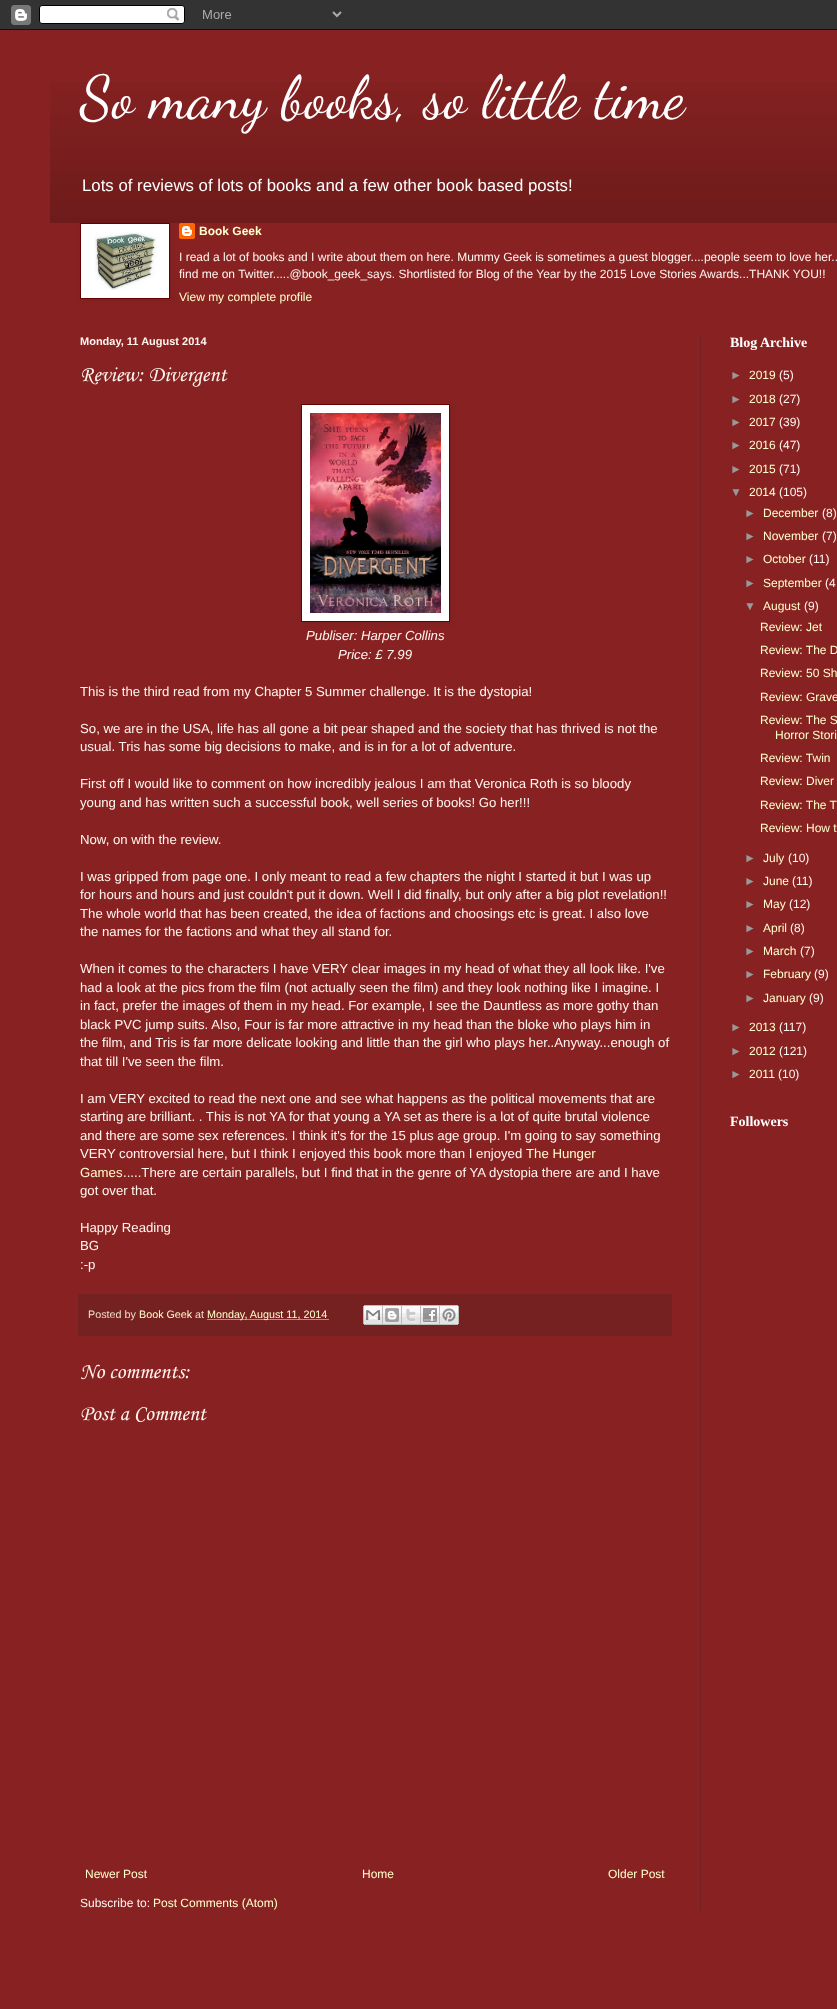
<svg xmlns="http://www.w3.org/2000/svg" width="837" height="2009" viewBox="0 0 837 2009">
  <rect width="100%" height="100%" fill="rgb(136,34,34)"/>
  <image x="0" y="0" width="837" height="30" href="pic1.png"/>
  <image x="50" y="82" width="787" height="141" href="pic2.png"/>
  <text x="80" y="117" font-family="Dancing Script" font-size="60" fill="rgb(255,255,255)">So many books, so little time</text>
  <text x="82" y="191" font-family="Liberation Sans" font-size="16.8" fill="rgb(255,255,255)">Lots of reviews of lots of books and a few other book based posts!</text>
  <image x="179" y="223" width="16" height="16" href="pic4.png"/>
  <rect x="81" y="224" width="90" height="76" fill="rgba(0,0,0,0.1)" filter="blur(2.5px)"/>
  <rect x="80.5" y="223.5" width="89" height="75" fill="rgb(255,255,255)" stroke="rgb(102,0,0)"/>
  <image x="94" y="232" width="63" height="58" href="pic3.png"/>
  <text x="199" y="235" font-family="Liberation Sans" font-size="12" font-weight="bold" fill="rgb(255,255,204)">Book Geek</text>
  <g font-family="Liberation Sans" font-size="12" fill="rgb(255,245,238)">
    <text>
      <tspan x="179" y="261">I read a lot of books and I write about them on here. Mummy Geek is sometimes a guest blogger....people seem to love her..</tspan>
      <tspan x="179" y="278">find me on Twitter.....@book_geek_says. Shortlisted for Blog of the Year by the 2015 Love Stories Awards...THANK YOU!!</tspan>
    </text>
  </g>
  <text x="179" y="301" font-family="Liberation Sans" font-size="12" fill="rgb(255,255,204)">View my complete profile</text>
  <rect x="700" y="335" width="1" height="1576" fill="rgb(118,33,33)"/>
  <text x="80" y="345" font-family="Liberation Sans" font-size="11" font-weight="bold" fill="rgb(255,245,238)">Monday, 11 August 2014</text>
  <text x="80" y="381" font-family="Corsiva" font-size="22" fill="rgb(255,245,238)">Review: Divergent</text>
  <rect x="302" y="405" width="149" height="218" fill="rgba(0,0,0,0.1)" filter="blur(2.5px)"/>
  <rect x="301.5" y="404.5" width="148" height="217" fill="rgb(255,255,255)" stroke="rgb(102,0,0)"/>
  <image x="310" y="413" width="131" height="200" href="pic5.png"/>
  <g font-family="Liberation Sans" font-size="13.2" font-style="italic" fill="rgb(255,245,238)">
    <text x="306" y="640">Publiser: Harper Collins</text>
    <text x="338" y="659">Price: £ 7.99</text>
  </g>
  <g font-family="Liberation Sans" font-size="13.2" fill="rgb(255,245,238)">
    <text x="80" y="696">This is the third read from my Chapter 5 Summer challenge. It is the dystopia!</text>
    <text>
      <tspan x="80" y="733">So, we are in the USA, life has all gone a bit pear shaped and the society that has thrived is not the</tspan>
      <tspan x="80" y="751">usual. Tris has some big decisions to make, and is in for a lot of adventure.</tspan>
    </text>
    <text>
      <tspan x="80" y="788">First off I would like to comment on how incredibly jealous I am that Veronica Roth is so bloody</tspan>
      <tspan x="80" y="807">young and has written such a successful book, well series of books! Go her!!!</tspan>
    </text>
    <text x="80" y="844">Now, on with the review.</text>
    <text>
      <tspan x="80" y="881">I was gripped from page one. I only meant to read a few chapters the night I started it but I was up</tspan>
      <tspan x="80" y="899">for hours and hours and just couldn't put it down. Well I did finally, but only after a big plot revelation!!</tspan>
      <tspan x="80" y="918">The whole world that has been created, the idea of factions and choosings etc is great. I also love</tspan>
      <tspan x="80" y="936">the names for the factions and what they all stand for.</tspan>
    </text>
    <text>
      <tspan x="80" y="973">When it comes to the characters I have VERY clear images in my head of what they all look like. I've</tspan>
      <tspan x="80" y="992">had a look at the pics from the film (not actually seen the film) and they look nothing like I imagine. I</tspan>
      <tspan x="80" y="1010">in fact, prefer the images of them in my head. For example, I see the Dauntless as more gothy than</tspan>
      <tspan x="80" y="1029">black PVC jump suits. Also, Four is far more attractive in my head than the bloke who plays him in</tspan>
      <tspan x="80" y="1047">the film, and Tris is far more delicate looking and little than the girl who plays her..Anyway...enough of</tspan>
      <tspan x="80" y="1066">that till I've seen the film.</tspan>
    </text>
    <text>
      <tspan x="80" y="1103">I am VERY excited to read the next one and see what happens as the political movements that are</tspan>
      <tspan x="80" y="1121">starting are brilliant. . This is not YA for that young a YA set as there is a lot of quite brutal violence</tspan>
      <tspan x="80" y="1140">and there are some sex references. I think it's for the 15 plus age group. I'm going to say something</tspan>
      <tspan x="80" y="1158">VERY controversial here, but I think I enjoyed this book more than I enjoyed</tspan>
    </text>
  </g>
  <g font-family="Liberation Sans" font-size="13.2" fill="rgb(255,255,204)">
    <text x="526" y="1158">The Hunger</text>
    <text x="80" y="1177">Games</text>
  </g>
  <g font-family="Liberation Sans" font-size="13.2" fill="rgb(255,245,238)">
    <text x="123" y="1177">.....There are certain parallels, but I find that in the genre of YA dystopia there are and I have</text>
    <text x="80" y="1195">got over that.</text>
    <text>
      <tspan x="80" y="1232">Happy Reading</tspan>
      <tspan x="80" y="1250">BG</tspan>
      <tspan x="80" y="1269">:-p</tspan>
    </text>
  </g>
  <rect x="78" y="1294" width="594" height="42" fill="rgb(118,33,33)"/>
  <text x="88" y="1318" font-family="Liberation Sans" font-size="10.75" fill="rgb(238,221,204)">Posted by</text>
  <text x="139" y="1318" font-family="Liberation Sans" font-size="10.75" fill="rgb(255,255,204)">Book Geek</text>
  <text x="195" y="1318" font-family="Liberation Sans" font-size="10.75" fill="rgb(238,221,204)">at</text>
  <path d="M207.5 1319.5H328.5" fill="none" stroke="rgb(255,255,204)" stroke-dasharray="1 1"/>
  <text x="207" y="1318" font-family="Liberation Sans" font-size="10.75" fill="rgb(255,255,204)">Monday, August 11, 2014</text>
  <image x="363" y="1305" width="20" height="20" href="pic6.png"/>
  <image x="383" y="1305" width="19" height="20" href="pic7.png"/>
  <image x="402" y="1305" width="19" height="20" href="pic8.png"/>
  <image x="421" y="1305" width="19" height="20" href="pic9.png"/>
  <image x="440" y="1305" width="19" height="20" href="pic10.png"/>
  <g font-family="Corsiva" font-size="22" fill="rgb(255,245,238)">
    <text>
      <tspan x="80" y="1378">No comments:</tspan>
      <tspan x="80" y="1420">Post a Comment</tspan>
    </text>
  </g>
  <g font-family="Liberation Sans" font-size="12" fill="rgb(255,255,204)">
    <text x="85" y="1878">Newer Post</text>
    <text x="362" y="1878">Home</text>
    <text x="608" y="1878">Older Post</text>
  </g>
  <text x="80" y="1907" font-family="Liberation Sans" font-size="12" fill="rgb(255,245,238)">Subscribe to:</text>
  <text x="153" y="1907" font-family="Liberation Sans" font-size="12" fill="rgb(255,255,204)">Post Comments (Atom)</text>
  <text x="730" y="347" font-family="Liberation Serif" font-size="14" font-weight="bold" fill="rgb(255,255,255)">Blog Archive</text>
  <text x="730" y="379" font-family="Liberation Sans" font-size="12" fill="rgb(153,153,153)">►</text>
  <text x="749" y="379" font-family="Liberation Sans" font-size="12" fill="rgb(255,255,204)">2019</text>
  <text x="779" y="379" font-family="Liberation Sans" font-size="12" fill="rgb(255,245,238)">(5)</text>
  <text x="730" y="403" font-family="Liberation Sans" font-size="12" fill="rgb(153,153,153)">►</text>
  <text x="749" y="403" font-family="Liberation Sans" font-size="12" fill="rgb(255,255,204)">2018</text>
  <text x="779" y="403" font-family="Liberation Sans" font-size="12" fill="rgb(255,245,238)">(27)</text>
  <text x="730" y="426" font-family="Liberation Sans" font-size="12" fill="rgb(153,153,153)">►</text>
  <text x="749" y="426" font-family="Liberation Sans" font-size="12" fill="rgb(255,255,204)">2017</text>
  <text x="779" y="426" font-family="Liberation Sans" font-size="12" fill="rgb(255,245,238)">(39)</text>
  <text x="730" y="449" font-family="Liberation Sans" font-size="12" fill="rgb(153,153,153)">►</text>
  <text x="749" y="449" font-family="Liberation Sans" font-size="12" fill="rgb(255,255,204)">2016</text>
  <text x="779" y="449" font-family="Liberation Sans" font-size="12" fill="rgb(255,245,238)">(47)</text>
  <text x="730" y="473" font-family="Liberation Sans" font-size="12" fill="rgb(153,153,153)">►</text>
  <text x="749" y="473" font-family="Liberation Sans" font-size="12" fill="rgb(255,255,204)">2015</text>
  <text x="779" y="473" font-family="Liberation Sans" font-size="12" fill="rgb(255,245,238)">(71)</text>
  <text x="730" y="496" font-family="Liberation Sans" font-size="12" fill="rgb(153,153,153)">▼</text>
  <text x="749" y="496" font-family="Liberation Sans" font-size="12" fill="rgb(255,255,204)">2014</text>
  <text x="779" y="496" font-family="Liberation Sans" font-size="12" fill="rgb(255,245,238)">(105)</text>
  <text x="744" y="517" font-family="Liberation Sans" font-size="12" fill="rgb(153,153,153)">►</text>
  <text x="763" y="517" font-family="Liberation Sans" font-size="12" fill="rgb(255,255,204)">December</text>
  <text x="822" y="517" font-family="Liberation Sans" font-size="12" fill="rgb(255,245,238)">(8)</text>
  <text x="744" y="540" font-family="Liberation Sans" font-size="12" fill="rgb(153,153,153)">►</text>
  <text x="763" y="540" font-family="Liberation Sans" font-size="12" fill="rgb(255,255,204)">November</text>
  <text x="822" y="540" font-family="Liberation Sans" font-size="12" fill="rgb(255,245,238)">(7)</text>
  <text x="744" y="563" font-family="Liberation Sans" font-size="12" fill="rgb(153,153,153)">►</text>
  <text x="763" y="563" font-family="Liberation Sans" font-size="12" fill="rgb(255,255,204)">October</text>
  <text x="809" y="563" font-family="Liberation Sans" font-size="12" fill="rgb(255,245,238)">(11)</text>
  <text x="744" y="587" font-family="Liberation Sans" font-size="12" fill="rgb(153,153,153)">►</text>
  <text x="763" y="587" font-family="Liberation Sans" font-size="12" fill="rgb(255,255,204)">September</text>
  <text x="825" y="587" font-family="Liberation Sans" font-size="12" fill="rgb(255,245,238)">(4</text>
  <text x="744" y="610" font-family="Liberation Sans" font-size="12" fill="rgb(153,153,153)">▼</text>
  <text x="763" y="610" font-family="Liberation Sans" font-size="12" fill="rgb(255,255,204)">August</text>
  <text x="804" y="610" font-family="Liberation Sans" font-size="12" fill="rgb(255,245,238)">(9)</text>
  <g font-family="Liberation Sans" font-size="12" fill="rgb(255,255,204)">
    <text>
      <tspan x="760" y="631">Review: Jet</tspan>
      <tspan x="760" y="654">Review: The D</tspan>
      <tspan x="760" y="677">Review: 50 Sh</tspan>
    </text>
    <text>
      <tspan x="760" y="701">Review: Grave</tspan>
      <tspan x="760" y="724">Review: The S</tspan>
    </text>
    <text x="775" y="739">Horror Stori</text>
    <text>
      <tspan x="760" y="762">Review: Twin</tspan>
      <tspan x="760" y="785">Review: Diver</tspan>
    </text>
    <text>
      <tspan x="760" y="809">Review: The T</tspan>
      <tspan x="760" y="832">Review: How t</tspan>
    </text>
  </g>
  <text x="744" y="862" font-family="Liberation Sans" font-size="12" fill="rgb(153,153,153)">►</text>
  <text x="763" y="862" font-family="Liberation Sans" font-size="12" fill="rgb(255,255,204)">July</text>
  <text x="788" y="862" font-family="Liberation Sans" font-size="12" fill="rgb(255,245,238)">(10)</text>
  <text x="744" y="885" font-family="Liberation Sans" font-size="12" fill="rgb(153,153,153)">►</text>
  <text x="763" y="885" font-family="Liberation Sans" font-size="12" fill="rgb(255,255,204)">June</text>
  <text x="792" y="885" font-family="Liberation Sans" font-size="12" fill="rgb(255,245,238)">(11)</text>
  <text x="744" y="908" font-family="Liberation Sans" font-size="12" fill="rgb(153,153,153)">►</text>
  <text x="763" y="908" font-family="Liberation Sans" font-size="12" fill="rgb(255,255,204)">May</text>
  <text x="789" y="908" font-family="Liberation Sans" font-size="12" fill="rgb(255,245,238)">(12)</text>
  <text x="744" y="932" font-family="Liberation Sans" font-size="12" fill="rgb(153,153,153)">►</text>
  <text x="763" y="932" font-family="Liberation Sans" font-size="12" fill="rgb(255,255,204)">April</text>
  <text x="790" y="932" font-family="Liberation Sans" font-size="12" fill="rgb(255,245,238)">(8)</text>
  <text x="744" y="955" font-family="Liberation Sans" font-size="12" fill="rgb(153,153,153)">►</text>
  <text x="763" y="955" font-family="Liberation Sans" font-size="12" fill="rgb(255,255,204)">March</text>
  <text x="800" y="955" font-family="Liberation Sans" font-size="12" fill="rgb(255,245,238)">(7)</text>
  <text x="744" y="978" font-family="Liberation Sans" font-size="12" fill="rgb(153,153,153)">►</text>
  <text x="763" y="978" font-family="Liberation Sans" font-size="12" fill="rgb(255,255,204)">February</text>
  <text x="814" y="978" font-family="Liberation Sans" font-size="12" fill="rgb(255,245,238)">(9)</text>
  <text x="744" y="1002" font-family="Liberation Sans" font-size="12" fill="rgb(153,153,153)">►</text>
  <text x="763" y="1002" font-family="Liberation Sans" font-size="12" fill="rgb(255,255,204)">January</text>
  <text x="809" y="1002" font-family="Liberation Sans" font-size="12" fill="rgb(255,245,238)">(9)</text>
  <text x="730" y="1031" font-family="Liberation Sans" font-size="12" fill="rgb(153,153,153)">►</text>
  <text x="749" y="1031" font-family="Liberation Sans" font-size="12" fill="rgb(255,255,204)">2013</text>
  <text x="779" y="1031" font-family="Liberation Sans" font-size="12" fill="rgb(255,245,238)">(117)</text>
  <text x="730" y="1055" font-family="Liberation Sans" font-size="12" fill="rgb(153,153,153)">►</text>
  <text x="749" y="1055" font-family="Liberation Sans" font-size="12" fill="rgb(255,255,204)">2012</text>
  <text x="779" y="1055" font-family="Liberation Sans" font-size="12" fill="rgb(255,245,238)">(121)</text>
  <text x="730" y="1078" font-family="Liberation Sans" font-size="12" fill="rgb(153,153,153)">►</text>
  <text x="749" y="1078" font-family="Liberation Sans" font-size="12" fill="rgb(255,255,204)">2011</text>
  <text x="778" y="1078" font-family="Liberation Sans" font-size="12" fill="rgb(255,245,238)">(10)</text>
  <text x="730" y="1126" font-family="Liberation Serif" font-size="14" font-weight="bold" fill="rgb(255,255,255)">Followers</text>
</svg>
